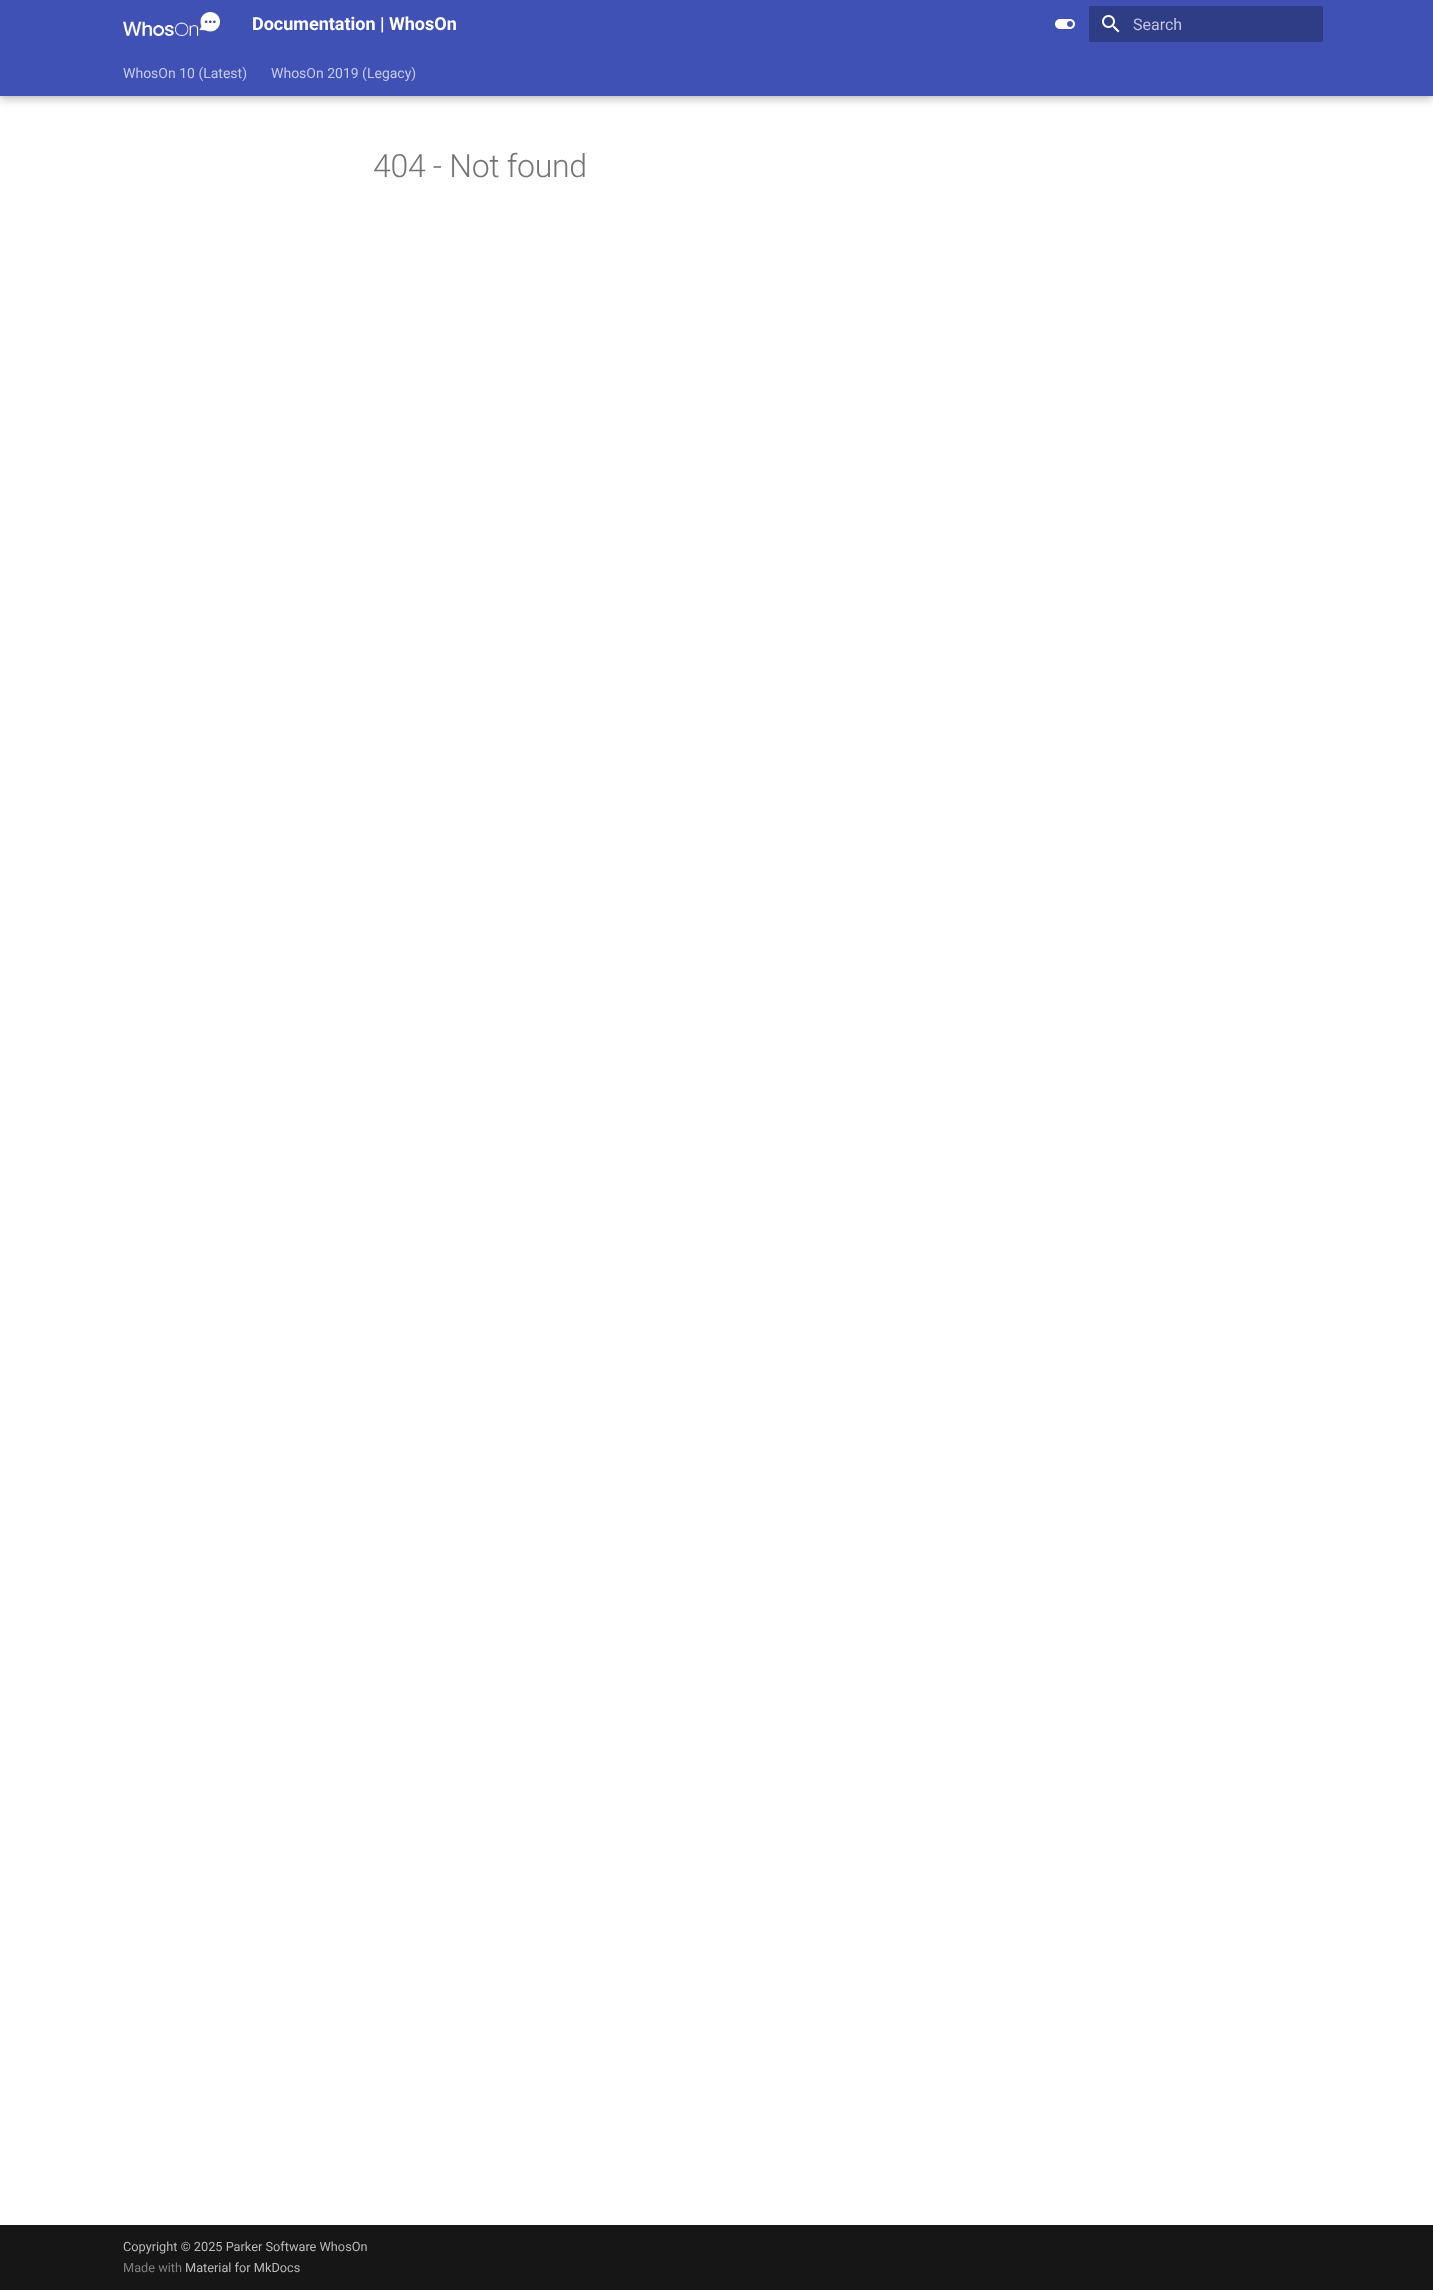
<svg xmlns="http://www.w3.org/2000/svg" width="1433" height="2290" viewBox="0 0 1433 2290">
  <rect width="100%" height="100%" fill="rgb(255,255,255)"/>
  <rect x="0" y="4" width="1433" height="96" fill="rgba(0,0,0,0.2)" filter="blur(4px)"/>
  <rect x="0" y="0" width="1433" height="96" fill="rgba(0,0,0,0.1)" filter="blur(2px)"/>
  <rect x="0" y="0" width="1433" height="96" fill="rgb(64,81,181)"/>
  <image x="123" y="12" width="97" height="24" href="pic1.png"/>
  <text x="252" y="30" font-family="Roboto" font-size="18" font-weight="bold" fill="rgb(255,255,255)">Documentation | WhosOn</text>
  <image x="1055" y="19" width="20" height="10" href="pic2.png"/>
  <rect x="1089" y="6" width="234" height="36" rx="2" fill="rgb(47,60,134)"/>
  <image x="1102" y="15" width="18" height="18" href="pic3.png"/>
  <text x="1133" y="30" font-family="Roboto" font-size="16" fill="rgb(193,197,219)">Search</text>
  <g font-family="Roboto" font-size="14" fill="rgb(198,203,233)">
    <text x="123" y="78">WhosOn 10 (Latest)</text>
    <text x="271" y="78">WhosOn 2019 (Legacy)</text>
  </g>
  <text x="373" y="177" font-family="Roboto" font-size="32" font-weight="300" letter-spacing="-0.3" fill="rgb(117,117,117)">404 - Not found</text>
  <rect x="0" y="2225" width="1433" height="65" fill="rgb(22,22,22)"/>
  <text x="123" y="2251" font-family="Roboto" font-size="12.75" fill="rgb(185,185,185)">Copyright © 2025 Parker Software WhosOn</text>
  <text x="123" y="2272" font-family="Roboto" font-size="12.75" fill="rgb(127,127,127)">Made with</text>
  <text x="185" y="2272" font-family="Roboto" font-size="12.75" fill="rgb(185,185,185)">Material for MkDocs</text>
</svg>
